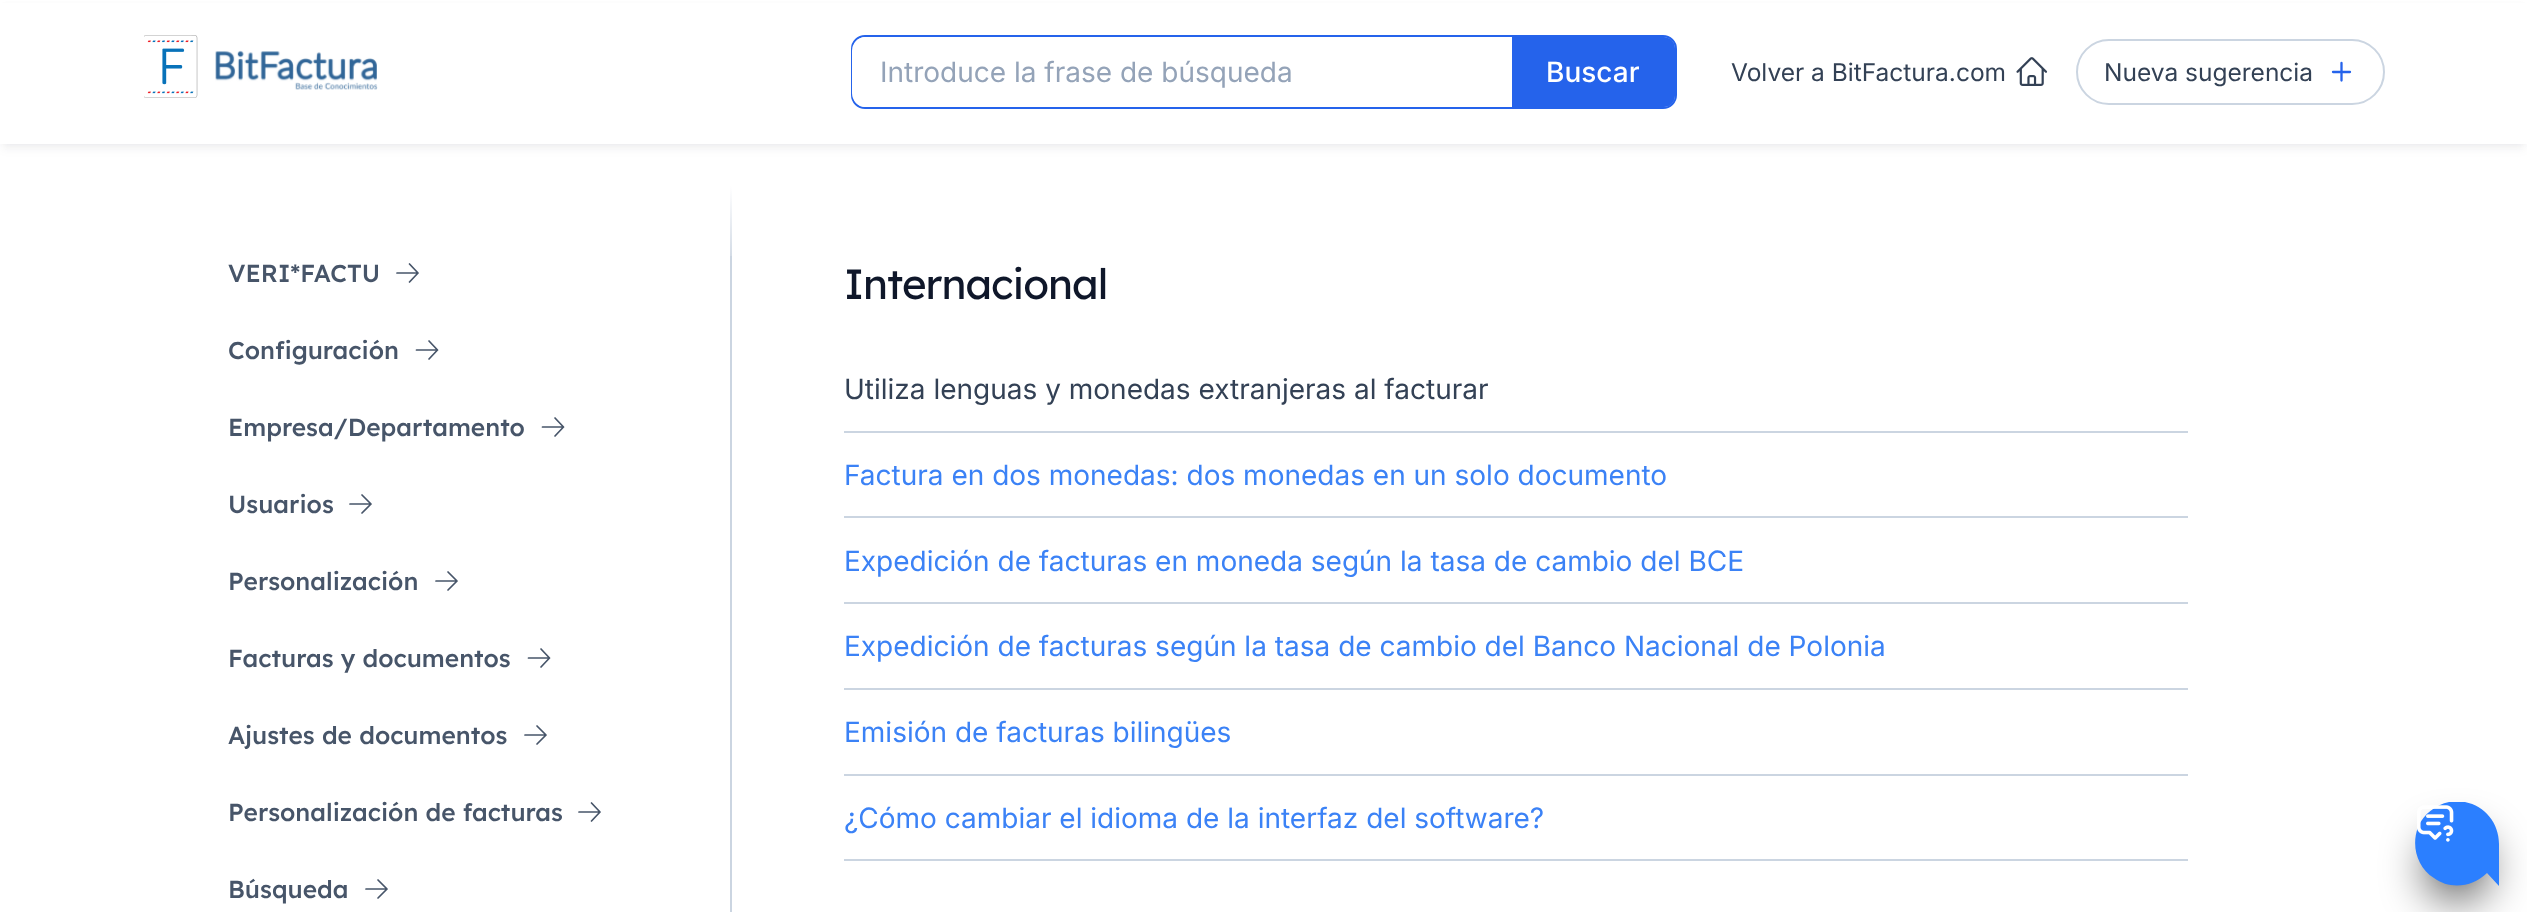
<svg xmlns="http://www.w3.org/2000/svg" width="2527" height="912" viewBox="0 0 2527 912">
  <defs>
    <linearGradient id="g1" gradientUnits="userSpaceOnUse" x1="731" y1="270" x2="731" y2="186"><stop offset="0" stop-color="rgb(203,213,225)"/><stop offset="1" stop-color="rgb(255,255,255)"/></linearGradient>
    <clipPath id="clip1"><rect x="2415" y="802" width="84" height="84"/></clipPath>
  </defs>
  <rect width="100%" height="100%" fill="rgb(255,255,255)"/>
  <rect x="4" y="7" width="2520" height="137" fill="rgba(15,23,42,0.05)" filter="blur(3.5px)"/>
  <rect x="2" y="9" width="2523" height="140" fill="rgba(15,23,42,0.05)" filter="blur(5px)"/>
  <rect x="0" y="3" width="2527" height="141" fill="rgb(255,255,255)"/>
  <image x="144" y="35" width="54" height="63" href="pic1.png"/>
  <image x="215" y="50" width="163" height="40" href="pic2.png"/>
  <rect x="852" y="36" width="824" height="72" rx="13" fill="none" stroke="rgb(37,99,235)" stroke-width="2"/>
  <rect x="852" y="37" width="646" height="70" rx="14" fill="rgb(255,255,255)"/>
  <text x="880" y="82" font-family="Inter" font-size="28" fill="rgb(148,163,184)">Introduce la frase de búsqueda</text>
  <path d="M1512 37H1664C1670 37 1675 42 1675 48V96C1675 102 1670 107 1664 107H1512Z" fill="rgb(37,99,235)"/>
  <text x="1546" y="82" font-family="Inter" font-size="28" font-weight="500" fill="rgb(255,255,255)">Buscar</text>
  <text x="1731" y="81" font-family="Inter" font-size="24.5" fill="rgb(51,65,85)">Volver a BitFactura.com</text>
  <image x="2016" y="57" width="32" height="29" href="pic3.png"/>
  <rect x="2077" y="40" width="307" height="64" rx="32" fill="none" stroke="rgb(203,213,225)" stroke-width="2"/>
  <text x="2104" y="81" font-family="Inter" font-size="24.5" fill="rgb(51,65,85)">Nueva sugerencia</text>
  <path d="M2341.5 63V80.5M2350 72H2333" fill="none" stroke="rgb(37,99,235)" stroke-width="2.3" stroke-linecap="round" stroke-linejoin="round"/>
  <rect x="730" y="186" width="2" height="70" fill="url(#g1)"/>
  <text x="228" y="282" font-family="Lexend" font-size="24.5" font-weight="500" fill="rgb(71,85,105)">VERI*FACTU</text>
  <path d="M409.5 264L418 273M418 273L409.5 282M418 273H397" fill="none" stroke="rgb(71,85,105)" stroke-width="1.7" stroke-linecap="round" stroke-linejoin="round"/>
  <text x="228" y="359" font-family="Lexend" font-size="24.5" font-weight="500" fill="rgb(71,85,105)">Configuración</text>
  <path d="M429 341L437.5 350M437.5 350L429 359M437.5 350H416.5" fill="none" stroke="rgb(71,85,105)" stroke-width="1.7" stroke-linecap="round" stroke-linejoin="round"/>
  <text x="228" y="436" font-family="Lexend" font-size="24.5" font-weight="500" fill="rgb(71,85,105)">Empresa/Departamento</text>
  <path d="M555 418L563.5 427M563.5 427L555 436M563.5 427H542.5" fill="none" stroke="rgb(71,85,105)" stroke-width="1.7" stroke-linecap="round" stroke-linejoin="round"/>
  <text x="228" y="513" font-family="Lexend" font-size="24.5" font-weight="500" fill="rgb(71,85,105)">Usuarios</text>
  <path d="M362 495L371 504M371 504L362 513M371 504H350" fill="none" stroke="rgb(71,85,105)" stroke-width="1.7" stroke-linecap="round" stroke-linejoin="round"/>
  <text x="228" y="590" font-family="Lexend" font-size="24.5" font-weight="500" fill="rgb(71,85,105)">Personalización</text>
  <path d="M448 572L457 581M457 581L448 590M457 581H436" fill="none" stroke="rgb(71,85,105)" stroke-width="1.7" stroke-linecap="round" stroke-linejoin="round"/>
  <text x="228" y="667" font-family="Lexend" font-size="24.5" font-weight="500" fill="rgb(71,85,105)">Facturas y documentos</text>
  <path d="M541 649L549.5 658M549.5 658L541 667M549.5 658H528.5" fill="none" stroke="rgb(71,85,105)" stroke-width="1.7" stroke-linecap="round" stroke-linejoin="round"/>
  <text x="228" y="744" font-family="Lexend" font-size="24.5" font-weight="500" fill="rgb(71,85,105)">Ajustes de documentos</text>
  <path d="M537 726L546 735M546 735L537 744M546 735H525" fill="none" stroke="rgb(71,85,105)" stroke-width="1.7" stroke-linecap="round" stroke-linejoin="round"/>
  <text x="228" y="821" font-family="Lexend" font-size="24.5" font-weight="500" fill="rgb(71,85,105)">Personalización de facturas</text>
  <path d="M591.5 803L600 812M600 812L591.5 821M600 812H579" fill="none" stroke="rgb(71,85,105)" stroke-width="1.7" stroke-linecap="round" stroke-linejoin="round"/>
  <text x="228" y="898" font-family="Lexend" font-size="24.5" font-weight="500" fill="rgb(71,85,105)">Búsqueda</text>
  <path d="M378 880L387 889M387 889L378 898M387 889H366" fill="none" stroke="rgb(71,85,105)" stroke-width="1.7" stroke-linecap="round" stroke-linejoin="round"/>
  <rect x="730" y="256" width="2" height="656" fill="rgb(203,213,225)"/>
  <text x="844" y="299" font-family="Lexend" font-size="42" letter-spacing="-1" fill="rgb(15,23,42)">Internacional</text>
  <text x="844" y="399" font-family="Inter" font-size="28" fill="rgb(51,65,85)">Utiliza lenguas y monedas extranjeras al facturar</text>
  <rect x="844" y="431" width="1344" height="2" fill="rgb(203,213,225)"/>
  <text x="844" y="485" font-family="Inter" font-size="28" fill="rgb(59,130,246)">Factura en dos monedas: dos monedas en un solo documento</text>
  <rect x="844" y="516" width="1344" height="2" fill="rgb(203,213,225)"/>
  <text x="844" y="571" font-family="Inter" font-size="28" fill="rgb(59,130,246)">Expedición de facturas en moneda según la tasa de cambio del BCE</text>
  <rect x="844" y="602" width="1344" height="2" fill="rgb(203,213,225)"/>
  <text x="844" y="656" font-family="Inter" font-size="28" fill="rgb(59,130,246)">Expedición de facturas según la tasa de cambio del Banco Nacional de Polonia</text>
  <rect x="844" y="688" width="1344" height="2" fill="rgb(203,213,225)"/>
  <text x="844" y="742" font-family="Inter" font-size="28" fill="rgb(59,130,246)">Emisión de facturas bilingües</text>
  <rect x="844" y="774" width="1344" height="2" fill="rgb(203,213,225)"/>
  <text x="844" y="828" font-family="Inter" font-size="28" fill="rgb(59,130,246)">¿Cómo cambiar el idioma de la interfaz del software?</text>
  <rect x="844" y="859" width="1344" height="2" fill="rgb(203,213,225)"/>
  <rect x="2424" y="835" width="66" height="66" rx="33" fill="rgba(0,0,0,0.62)" filter="blur(22px)"/>
  <rect x="2429" y="823" width="56" height="56" rx="28" fill="rgba(0,0,0,0.18)" filter="blur(7px)"/>
  <g clip-path="url(#clip1)">
    <path d="M2499 844V886L2487 873C2473 887 2450 890 2434 878C2417 867 2411 846 2418 827C2426 809 2446 798 2465 802C2485 806 2499 823 2499 844Z" fill="rgb(43,127,255)"/>
  </g>
  <image x="2417" y="805" width="37" height="37" href="pic4.png"/>
</svg>
